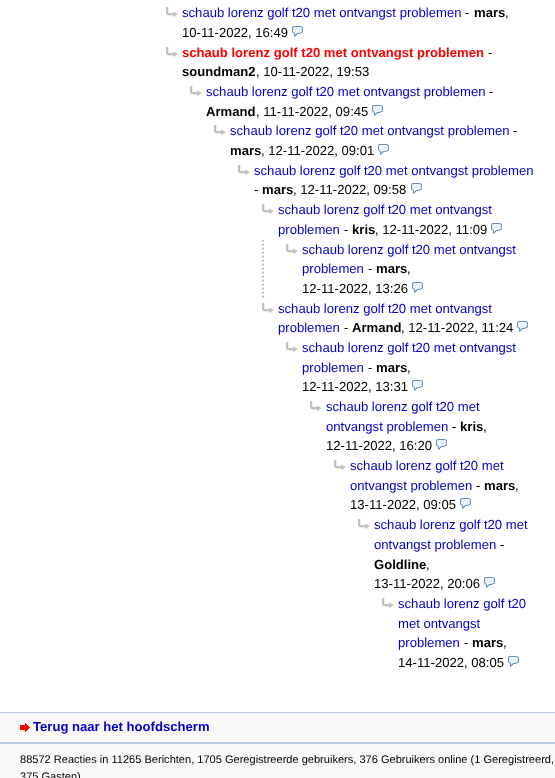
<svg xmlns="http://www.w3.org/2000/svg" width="555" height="778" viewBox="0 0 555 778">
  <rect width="100%" height="100%" fill="rgb(249,249,249)"/>
  <rect x="0" y="0" width="555" height="712" fill="rgb(255,255,255)"/>
  <image x="166" y="7" width="12" height="10" href="pic1.png"/>
  <text x="182" y="17" font-family="Liberation Sans" font-size="13.1" fill="rgb(0,0,204)">schaub lorenz golf t20 met ontvangst problemen</text>
  <text x="465" y="17" font-family="Liberation Sans" font-size="13.1" fill="rgb(0,0,0)">-</text>
  <text x="474" y="17" font-family="Liberation Sans" font-size="13.1" font-weight="bold" fill="rgb(0,0,0)">mars</text>
  <g font-family="Liberation Sans" font-size="13.1" fill="rgb(0,0,0)">
    <text x="505" y="17">,</text>
    <text x="182" y="37">10-11-2022, 16:49</text>
  </g>
  <image x="292" y="26" width="11" height="11" href="pic2.png"/>
  <image x="166" y="47" width="12" height="10" href="pic1.png"/>
  <text x="182" y="57" font-family="Liberation Sans" font-size="13.1" font-weight="bold" fill="rgb(255,0,0)">schaub lorenz golf t20 met ontvangst problemen</text>
  <text x="488" y="57" font-family="Liberation Sans" font-size="13.1" fill="rgb(0,0,0)">-</text>
  <text x="182" y="76" font-family="Liberation Sans" font-size="13.1" font-weight="bold" fill="rgb(0,0,0)">soundman2</text>
  <text x="256" y="76" font-family="Liberation Sans" font-size="13.1" fill="rgb(0,0,0)">, 10-11-2022, 19:53</text>
  <image x="190" y="86" width="12" height="10" href="pic1.png"/>
  <text x="206" y="96" font-family="Liberation Sans" font-size="13.1" fill="rgb(0,0,204)">schaub lorenz golf t20 met ontvangst problemen</text>
  <text x="489" y="96" font-family="Liberation Sans" font-size="13.1" fill="rgb(0,0,0)">-</text>
  <text x="206" y="116" font-family="Liberation Sans" font-size="13.1" font-weight="bold" fill="rgb(0,0,0)">Armand</text>
  <text x="256" y="116" font-family="Liberation Sans" font-size="13.1" fill="rgb(0,0,0)">, 11-11-2022, 09:45</text>
  <image x="372" y="105" width="11" height="11" href="pic2.png"/>
  <image x="214" y="125" width="12" height="10" href="pic1.png"/>
  <text x="230" y="135" font-family="Liberation Sans" font-size="13.1" fill="rgb(0,0,204)">schaub lorenz golf t20 met ontvangst problemen</text>
  <text x="513" y="135" font-family="Liberation Sans" font-size="13.1" fill="rgb(0,0,0)">-</text>
  <text x="230" y="155" font-family="Liberation Sans" font-size="13.1" font-weight="bold" fill="rgb(0,0,0)">mars</text>
  <text x="261" y="155" font-family="Liberation Sans" font-size="13.1" fill="rgb(0,0,0)">, 12-11-2022, 09:01</text>
  <image x="378" y="144" width="11" height="11" href="pic2.png"/>
  <image x="238" y="165" width="12" height="10" href="pic1.png"/>
  <text x="254" y="175" font-family="Liberation Sans" font-size="13.1" fill="rgb(0,0,204)">schaub lorenz golf t20 met ontvangst problemen</text>
  <text x="254" y="194" font-family="Liberation Sans" font-size="13.1" fill="rgb(0,0,0)">-</text>
  <text x="262" y="194" font-family="Liberation Sans" font-size="13.1" font-weight="bold" fill="rgb(0,0,0)">mars</text>
  <text x="293" y="194" font-family="Liberation Sans" font-size="13.1" fill="rgb(0,0,0)">, 12-11-2022, 09:58</text>
  <image x="411" y="183" width="11" height="11" href="pic2.png"/>
  <image x="262" y="204" width="12" height="10" href="pic1.png"/>
  <g font-family="Liberation Sans" font-size="13.1" fill="rgb(0,0,204)">
    <text>
      <tspan x="278" y="214">schaub lorenz golf t20 met ontvangst</tspan>
      <tspan x="278" y="234">problemen</tspan>
    </text>
  </g>
  <text x="344" y="234" font-family="Liberation Sans" font-size="13.1" fill="rgb(0,0,0)">-</text>
  <text x="352" y="234" font-family="Liberation Sans" font-size="13.1" font-weight="bold" fill="rgb(0,0,0)">kris</text>
  <text x="375" y="234" font-family="Liberation Sans" font-size="13.1" fill="rgb(0,0,0)">, 12-11-2022, 11:09</text>
  <image x="491" y="223" width="11" height="11" href="pic2.png"/>
  <image x="262" y="240" width="2" height="58" href="pic3.png"/>
  <image x="286" y="244" width="12" height="10" href="pic1.png"/>
  <g font-family="Liberation Sans" font-size="13.1" fill="rgb(0,0,204)">
    <text>
      <tspan x="302" y="254">schaub lorenz golf t20 met ontvangst</tspan>
      <tspan x="302" y="273">problemen</tspan>
    </text>
  </g>
  <text x="368" y="273" font-family="Liberation Sans" font-size="13.1" fill="rgb(0,0,0)">-</text>
  <text x="376" y="273" font-family="Liberation Sans" font-size="13.1" font-weight="bold" fill="rgb(0,0,0)">mars</text>
  <g font-family="Liberation Sans" font-size="13.1" fill="rgb(0,0,0)">
    <text x="407" y="273">,</text>
    <text x="302" y="293">12-11-2022, 13:26</text>
  </g>
  <image x="412" y="282" width="11" height="11" href="pic2.png"/>
  <image x="262" y="303" width="12" height="10" href="pic1.png"/>
  <g font-family="Liberation Sans" font-size="13.1" fill="rgb(0,0,204)">
    <text>
      <tspan x="278" y="313">schaub lorenz golf t20 met ontvangst</tspan>
      <tspan x="278" y="332">problemen</tspan>
    </text>
  </g>
  <text x="344" y="332" font-family="Liberation Sans" font-size="13.1" fill="rgb(0,0,0)">-</text>
  <text x="352" y="332" font-family="Liberation Sans" font-size="13.1" font-weight="bold" fill="rgb(0,0,0)">Armand</text>
  <text x="401" y="332" font-family="Liberation Sans" font-size="13.1" fill="rgb(0,0,0)">, 12-11-2022, 11:24</text>
  <image x="517" y="321" width="11" height="11" href="pic2.png"/>
  <image x="286" y="342" width="12" height="10" href="pic1.png"/>
  <g font-family="Liberation Sans" font-size="13.1" fill="rgb(0,0,204)">
    <text>
      <tspan x="302" y="352">schaub lorenz golf t20 met ontvangst</tspan>
      <tspan x="302" y="372">problemen</tspan>
    </text>
  </g>
  <text x="368" y="372" font-family="Liberation Sans" font-size="13.1" fill="rgb(0,0,0)">-</text>
  <text x="376" y="372" font-family="Liberation Sans" font-size="13.1" font-weight="bold" fill="rgb(0,0,0)">mars</text>
  <g font-family="Liberation Sans" font-size="13.1" fill="rgb(0,0,0)">
    <text x="407" y="372">,</text>
    <text x="302" y="391">12-11-2022, 13:31</text>
  </g>
  <image x="412" y="380" width="11" height="11" href="pic2.png"/>
  <image x="310" y="401" width="12" height="10" href="pic1.png"/>
  <g font-family="Liberation Sans" font-size="13.1" fill="rgb(0,0,204)">
    <text>
      <tspan x="326" y="411">schaub lorenz golf t20 met</tspan>
      <tspan x="326" y="431">ontvangst problemen</tspan>
    </text>
  </g>
  <text x="452" y="431" font-family="Liberation Sans" font-size="13.1" fill="rgb(0,0,0)">-</text>
  <text x="460" y="431" font-family="Liberation Sans" font-size="13.1" font-weight="bold" fill="rgb(0,0,0)">kris</text>
  <g font-family="Liberation Sans" font-size="13.1" fill="rgb(0,0,0)">
    <text x="483" y="431">,</text>
    <text x="326" y="450">12-11-2022, 16:20</text>
  </g>
  <image x="436" y="439" width="11" height="11" href="pic2.png"/>
  <image x="334" y="460" width="12" height="10" href="pic1.png"/>
  <g font-family="Liberation Sans" font-size="13.1" fill="rgb(0,0,204)">
    <text>
      <tspan x="350" y="470">schaub lorenz golf t20 met</tspan>
      <tspan x="350" y="490">ontvangst problemen</tspan>
    </text>
  </g>
  <text x="476" y="490" font-family="Liberation Sans" font-size="13.1" fill="rgb(0,0,0)">-</text>
  <text x="484" y="490" font-family="Liberation Sans" font-size="13.1" font-weight="bold" fill="rgb(0,0,0)">mars</text>
  <g font-family="Liberation Sans" font-size="13.1" fill="rgb(0,0,0)">
    <text x="515" y="490">,</text>
    <text x="350" y="509">13-11-2022, 09:05</text>
  </g>
  <image x="460" y="498" width="11" height="11" href="pic2.png"/>
  <image x="358" y="519" width="12" height="10" href="pic1.png"/>
  <g font-family="Liberation Sans" font-size="13.1" fill="rgb(0,0,204)">
    <text>
      <tspan x="374" y="529">schaub lorenz golf t20 met</tspan>
      <tspan x="374" y="549">ontvangst problemen</tspan>
    </text>
  </g>
  <text x="500" y="549" font-family="Liberation Sans" font-size="13.1" fill="rgb(0,0,0)">-</text>
  <text x="374" y="569" font-family="Liberation Sans" font-size="13.1" font-weight="bold" fill="rgb(0,0,0)">Goldline</text>
  <g font-family="Liberation Sans" font-size="13.1" fill="rgb(0,0,0)">
    <text x="426" y="569">,</text>
    <text x="374" y="588">13-11-2022, 20:06</text>
  </g>
  <image x="484" y="577" width="11" height="11" href="pic2.png"/>
  <image x="382" y="598" width="12" height="10" href="pic1.png"/>
  <g font-family="Liberation Sans" font-size="13.1" fill="rgb(0,0,204)">
    <text>
      <tspan x="398" y="608">schaub lorenz golf t20</tspan>
      <tspan x="398" y="628">met ontvangst</tspan>
      <tspan x="398" y="647">problemen</tspan>
    </text>
  </g>
  <text x="464" y="647" font-family="Liberation Sans" font-size="13.1" fill="rgb(0,0,0)">-</text>
  <text x="472" y="647" font-family="Liberation Sans" font-size="13.1" font-weight="bold" fill="rgb(0,0,0)">mars</text>
  <g font-family="Liberation Sans" font-size="13.1" fill="rgb(0,0,0)">
    <text x="503" y="647">,</text>
    <text x="398" y="667">14-11-2022, 08:05</text>
  </g>
  <image x="508" y="656" width="11" height="11" href="pic2.png"/>
  <rect x="0" y="712" width="555" height="1" fill="rgb(186,203,223)"/>
  <rect x="0" y="742" width="555" height="2" fill="rgb(186,203,223)"/>
  <image x="20" y="723" width="10" height="9" href="pic4.png"/>
  <text x="33" y="731" font-family="Liberation Sans" font-size="13.1" font-weight="bold" fill="rgb(0,0,204)">Terug naar het hoofdscherm</text>
  <g font-family="Liberation Sans" font-size="11.05" fill="rgb(0,0,0)">
    <text>
      <tspan x="20" y="763">88572 Reacties in 11265 Berichten, 1705 Geregistreerde gebruikers, 376 Gebruikers online (1 Geregistreerd,</tspan>
      <tspan x="20" y="780">375 Gasten)</tspan>
    </text>
  </g>
</svg>
